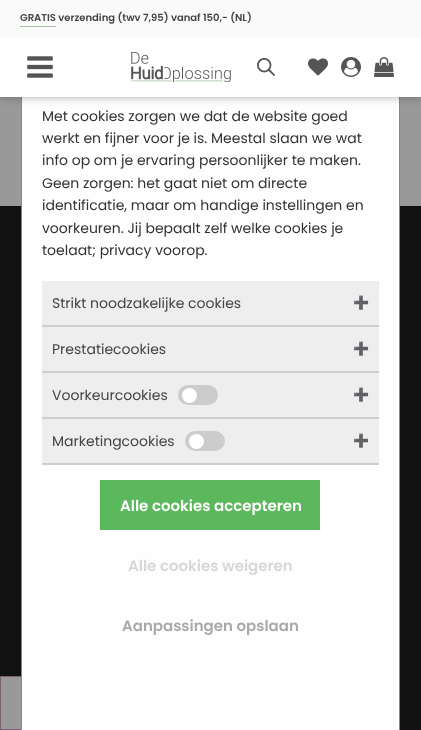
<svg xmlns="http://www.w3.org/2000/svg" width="421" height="730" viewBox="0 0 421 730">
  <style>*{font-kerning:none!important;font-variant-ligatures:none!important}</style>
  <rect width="100%" height="100%" fill="rgb(153,153,153)"/>
  <rect x="0" y="206" width="421" height="524" fill="rgb(17,17,17)"/>
  <rect x="1" y="677" width="20" height="52" fill="rgb(153,153,153)"/>
  <rect x="0.5" y="676.5" width="122" height="53" fill="none" stroke="rgb(123,97,111)"/>
  <rect x="22" y="97" width="377" height="633" fill="rgb(254,254,254)"/>
  <rect x="21.5" y="42.5" width="378" height="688" fill="none" stroke="rgb(136,136,136)"/>
  <rect x="0" y="0" width="421" height="97" fill="rgba(0,0,0,0.3)" filter="blur(5px)"/>
  <rect x="0" y="37" width="421" height="60" fill="rgb(255,255,255)"/>
  <rect x="0" y="0" width="421" height="37" fill="rgb(250,250,250)"/>
  <rect x="20" y="26" width="36" height="1" fill="rgb(167,193,160)"/>
  <text x="20" y="21" font-family="Poppins" font-size="10" font-weight="600" fill="rgb(68,68,68)">GRATIS verzending (twv 7,95) vanaf 150,- (NL)</text>
  <image x="27" y="56" width="26" height="22" href="pic1.png"/>
  <image x="131" y="52" width="100" height="30" href="pic2.png"/>
  <image x="257" y="58" width="18" height="18" href="pic3.png"/>
  <image x="308" y="58" width="20" height="18" href="pic4.png"/>
  <image x="341" y="57" width="20" height="20" href="pic5.png"/>
  <image x="374" y="57" width="20" height="20" href="pic6.png"/>
  <g font-family="Poppins" font-size="14" fill="rgb(51,51,51)">
    <text>
      <tspan x="42" y="121">Met cookies zorgen we dat de website goed</tspan>
      <tspan x="42" y="143">werkt en fijner voor je is. Meestal slaan we wat</tspan>
      <tspan x="42" y="165">info op om je ervaring persoonlijker te maken.</tspan>
      <tspan x="42" y="188">Geen zorgen: het gaat niet om directe</tspan>
      <tspan x="42" y="210">identificatie, maar om handige instellingen en</tspan>
      <tspan x="42" y="233">voorkeuren. Jij bepaalt zelf welke cookies je</tspan>
      <tspan x="42" y="255">toelaat; privacy voorop.</tspan>
    </text>
  </g>
  <rect x="42" y="281" width="337" height="44" fill="rgb(238,238,238)"/>
  <text x="52" y="308" font-family="Poppins" font-size="14" fill="rgb(68,68,68)">Strikt noodzakelijke cookies</text>
  <text x="353" y="307" font-family="Noto Color Emoji" font-size="13" fill="rgb(119,119,119)">➕</text>
  <rect x="42" y="325" width="337" height="2" fill="rgb(205,205,205)"/>
  <rect x="42" y="327" width="337" height="44" fill="rgb(238,238,238)"/>
  <text x="52" y="354" font-family="Poppins" font-size="14" fill="rgb(68,68,68)">Prestatiecookies</text>
  <text x="353" y="353" font-family="Noto Color Emoji" font-size="13" fill="rgb(119,119,119)">➕</text>
  <rect x="42" y="371" width="337" height="2" fill="rgb(205,205,205)"/>
  <rect x="42" y="373" width="337" height="44" fill="rgb(238,238,238)"/>
  <text x="52" y="400" font-family="Poppins" font-size="14" fill="rgb(68,68,68)">Voorkeurcookies</text>
  <rect x="178" y="385" width="40" height="20" rx="10" fill="rgb(204,204,204)"/>
  <circle cx="189.5" cy="395.5" r="7.5" fill="rgb(255,255,255)"/>
  <text x="353" y="399" font-family="Noto Color Emoji" font-size="13" fill="rgb(119,119,119)">➕</text>
  <rect x="42" y="417" width="337" height="2" fill="rgb(205,205,205)"/>
  <rect x="42" y="419" width="337" height="44" fill="rgb(238,238,238)"/>
  <text x="52" y="446" font-family="Poppins" font-size="14" fill="rgb(68,68,68)">Marketingcookies</text>
  <rect x="185" y="431" width="40" height="20" rx="10" fill="rgb(204,204,204)"/>
  <circle cx="196.5" cy="441.5" r="7.5" fill="rgb(255,255,255)"/>
  <text x="353" y="445" font-family="Noto Color Emoji" font-size="13" fill="rgb(119,119,119)">➕</text>
  <rect x="42" y="463" width="337" height="2" fill="rgb(205,205,205)"/>
  <rect x="100" y="480" width="220" height="50" fill="rgb(92,184,92)"/>
  <text x="120" y="511" font-family="Poppins" font-size="15" font-weight="600" fill="rgb(255,255,255)">Alle cookies accepteren</text>
  <text x="128" y="571" font-family="Poppins" font-size="15" font-weight="600" fill="rgb(215,215,215)">Alle cookies weigeren</text>
  <text x="122" y="631" font-family="Poppins" font-size="15" font-weight="600" fill="rgb(169,169,169)">Aanpassingen opslaan</text>
</svg>
